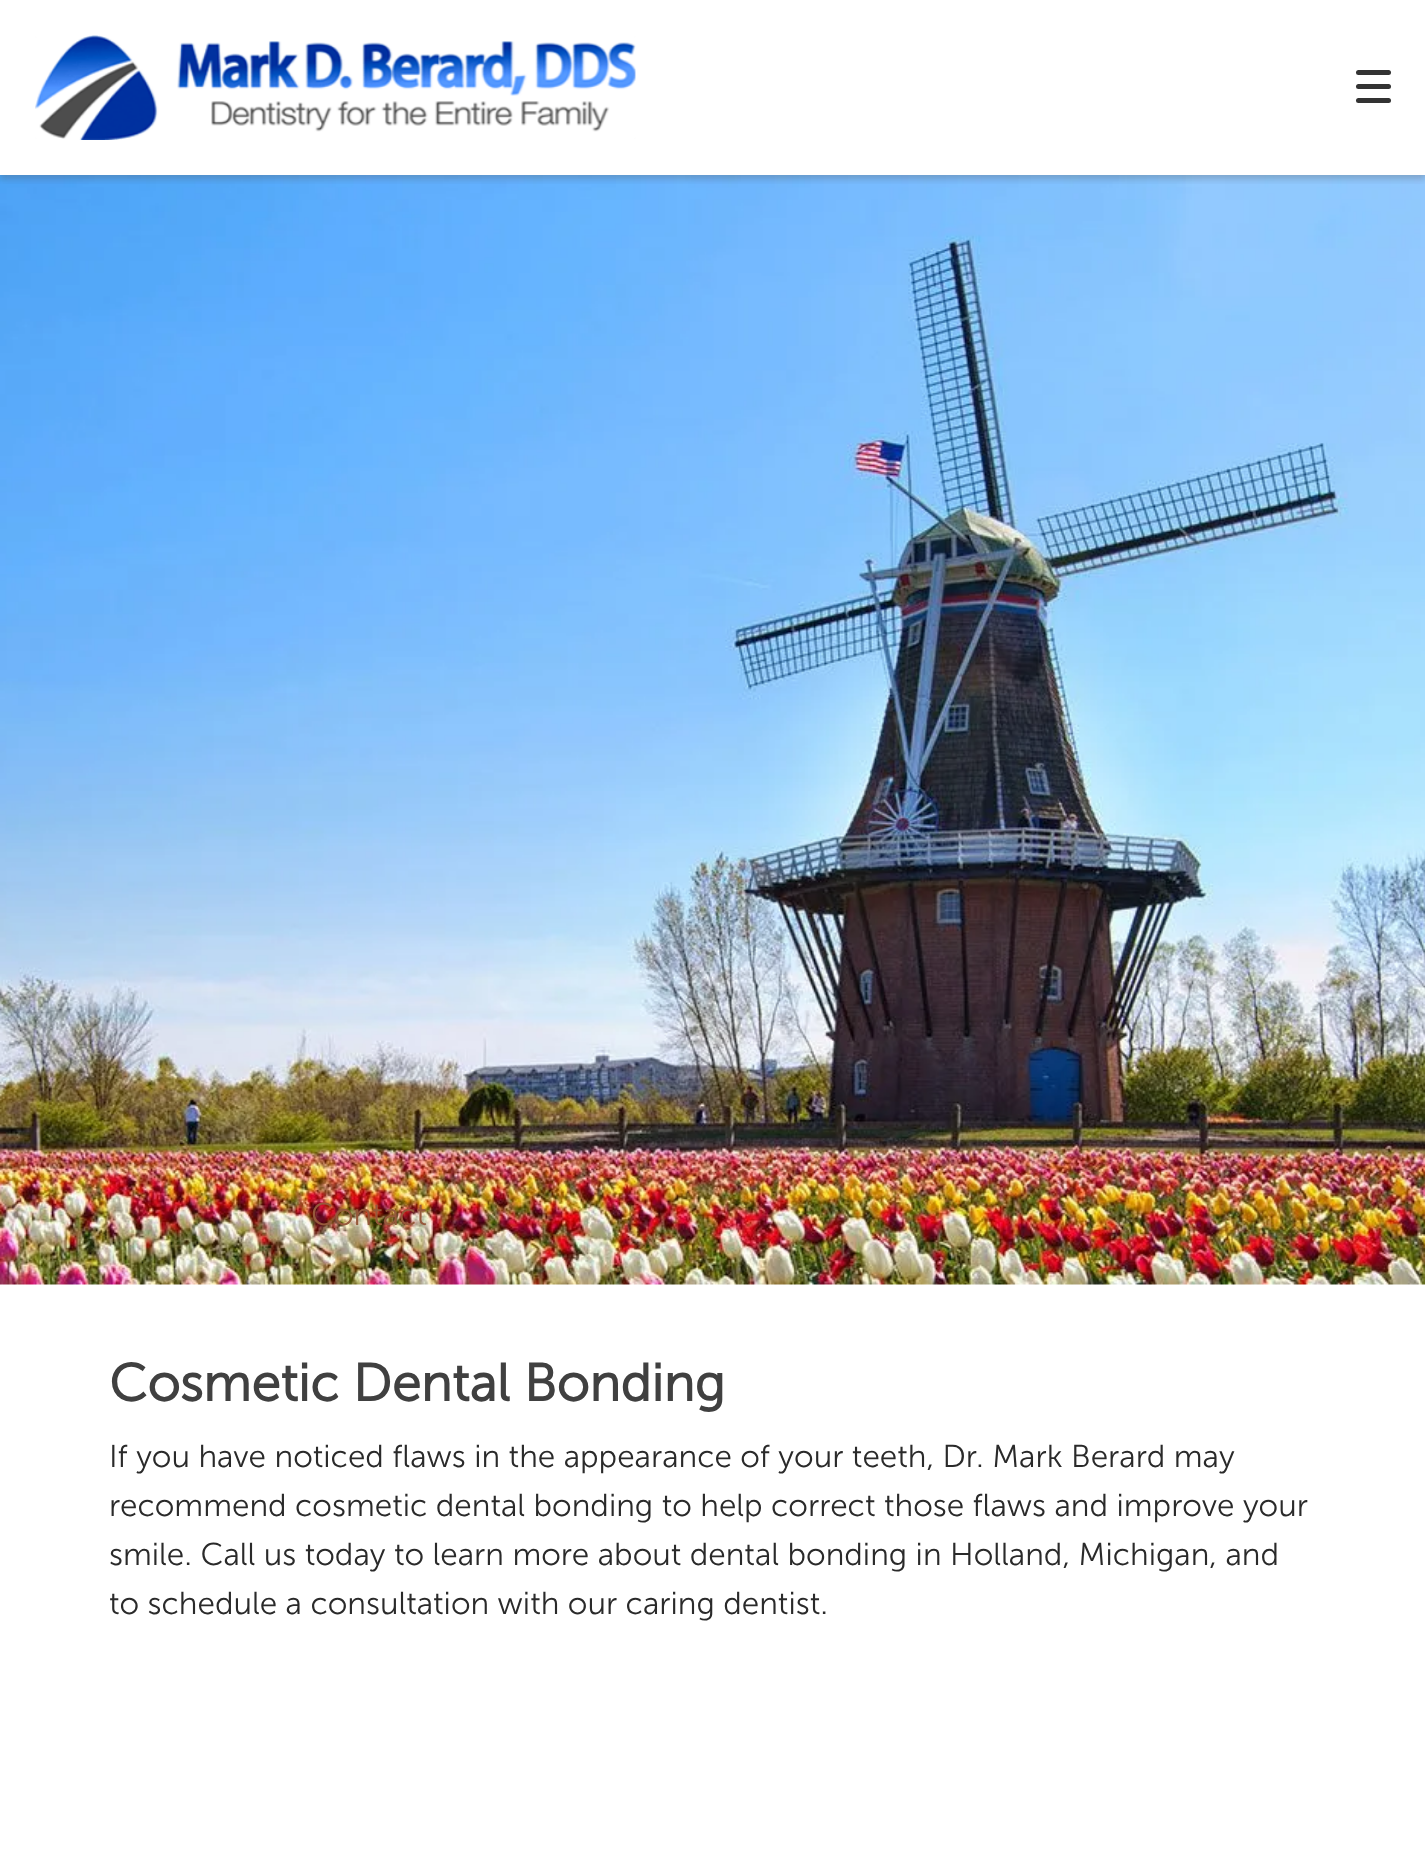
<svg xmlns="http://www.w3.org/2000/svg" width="1425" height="1856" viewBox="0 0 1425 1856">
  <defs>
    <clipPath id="clip1"><rect x="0" y="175" width="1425" height="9"/></clipPath>
  </defs>
  <rect width="100%" height="100%" fill="rgb(255,255,255)"/>
  <image x="0" y="175" width="1425" height="1110" href="pic1.png"/>
  <g clip-path="url(#clip1)">
    <rect x="0" y="4" width="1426" height="175" fill="rgba(80,80,80,0.3)" filter="blur(3.5px)"/>
  </g>
  <image x="35" y="35" width="601" height="105" href="pic2.png"/>
  <rect x="1356" y="70" width="35" height="5" rx="2.5" fill="rgb(51,51,51)"/>
  <rect x="1356" y="84" width="35" height="5" rx="2.5" fill="rgb(51,51,51)"/>
  <rect x="1356" y="98" width="35" height="5" rx="2.5" fill="rgb(51,51,51)"/>
  <text x="311" y="1225" font-family="Museo Sans" font-size="31.5" font-weight="300" fill="rgb(150,89,59)">Contact</text>
  <text x="109" y="1401" font-family="Museo Sans" font-size="52.5" font-weight="bold" fill="rgb(64,64,64)">Cosmetic Dental Bonding</text>
  <g font-family="Museo Sans" font-size="31.5" font-weight="300" fill="rgb(42,42,42)">
    <text>
      <tspan x="109" y="1467">If you have noticed flaws in the appearance of your teeth, Dr. Mark Berard may</tspan>
      <tspan x="109" y="1516">recommend cosmetic dental bonding to help correct those flaws and improve your</tspan>
      <tspan x="109" y="1565">smile. Call us today to learn more about dental bonding in Holland, Michigan, and</tspan>
      <tspan x="109" y="1614">to schedule a consultation with our caring dentist.</tspan>
    </text>
  </g>
</svg>
